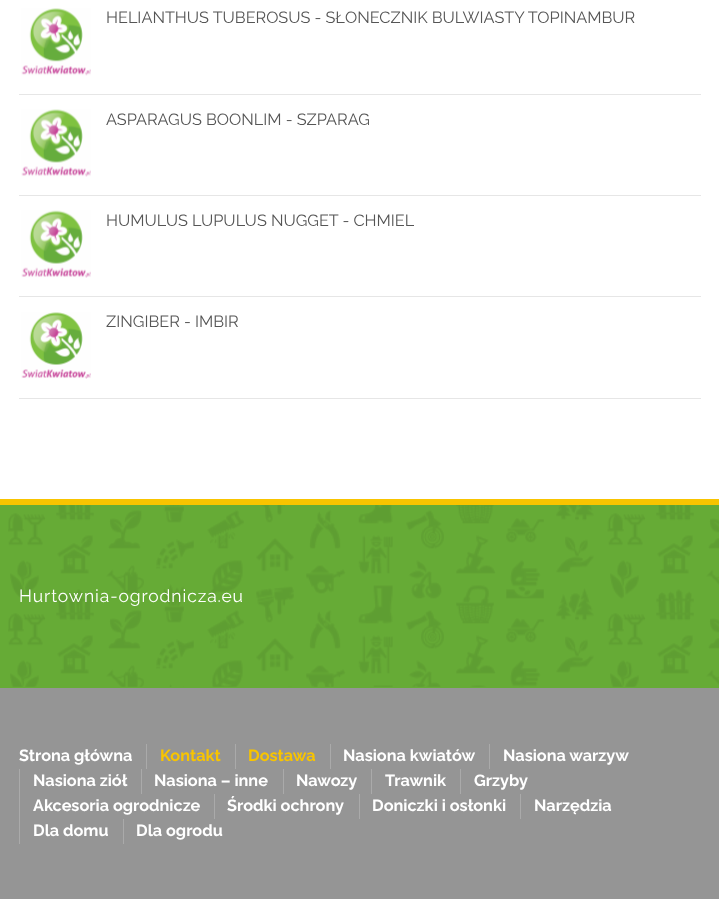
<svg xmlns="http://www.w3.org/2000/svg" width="719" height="899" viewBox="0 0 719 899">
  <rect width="100%" height="100%" fill="rgb(255,255,255)"/>
  <rect x="19" y="94" width="682" height="1" fill="rgb(230,230,230)"/>
  <image x="21" y="8" width="70" height="68" href="pic1.png"/>
  <text x="106" y="23" font-family="Raleway" font-size="16.25" fill="rgb(85,85,85)">HELIANTHUS TUBEROSUS - SŁONECZNIK BULWIASTY TOPINAMBUR</text>
  <rect x="19" y="195" width="682" height="1" fill="rgb(230,230,230)"/>
  <image x="21" y="109" width="70" height="68" href="pic2.png"/>
  <text x="106" y="125" font-family="Raleway" font-size="16.25" fill="rgb(85,85,85)">ASPARAGUS BOONLIM - SZPARAG</text>
  <rect x="19" y="296" width="682" height="1" fill="rgb(230,230,230)"/>
  <image x="21" y="210" width="70" height="68" href="pic3.png"/>
  <text x="106" y="226" font-family="Raleway" font-size="16.25" fill="rgb(85,85,85)">HUMULUS LUPULUS NUGGET - CHMIEL</text>
  <rect x="19" y="398" width="682" height="1" fill="rgb(230,230,230)"/>
  <image x="21" y="312" width="70" height="67" href="pic4.png"/>
  <text x="106" y="327" font-family="Raleway" font-size="16.25" fill="rgb(85,85,85)">ZINGIBER - IMBIR</text>
  <rect x="0" y="499" width="719" height="6" fill="rgb(248,196,0)"/>
  <rect x="0" y="505" width="719" height="183" fill="rgb(102,171,54)"/>
  <image x="8" y="505" width="711" height="182" href="pic5.png"/>
  <text x="19" y="602" font-family="Raleway" font-size="17.5" letter-spacing="0.9" fill="rgb(255,255,255)">Hurtownia-ogrodnicza.eu</text>
  <rect x="0" y="688" width="719" height="211" fill="rgb(149,149,149)"/>
  <text x="19" y="761" font-family="Raleway" font-size="16.25" font-weight="bold" fill="rgb(255,255,255)">Strona główna</text>
  <rect x="146" y="744" width="1" height="25" fill="rgb(170,170,170)"/>
  <text x="160" y="761" font-family="Raleway" font-size="16.25" font-weight="bold" fill="rgb(248,196,0)">Kontakt</text>
  <rect x="235" y="744" width="1" height="25" fill="rgb(170,170,170)"/>
  <text x="248" y="761" font-family="Raleway" font-size="16.25" font-weight="bold" fill="rgb(248,196,0)">Dostawa</text>
  <rect x="330" y="744" width="1" height="25" fill="rgb(170,170,170)"/>
  <text x="343" y="761" font-family="Raleway" font-size="16.25" font-weight="bold" fill="rgb(255,255,255)">Nasiona kwiatów</text>
  <rect x="489" y="744" width="1" height="25" fill="rgb(170,170,170)"/>
  <text x="503" y="761" font-family="Raleway" font-size="16.25" font-weight="bold" fill="rgb(255,255,255)">Nasiona warzyw</text>
  <rect x="19" y="769" width="1" height="75" fill="rgb(170,170,170)"/>
  <text x="33" y="786" font-family="Raleway" font-size="16.25" font-weight="bold" fill="rgb(255,255,255)">Nasiona ziół</text>
  <rect x="141" y="769" width="1" height="25" fill="rgb(170,170,170)"/>
  <text x="154" y="786" font-family="Raleway" font-size="16.25" font-weight="bold" fill="rgb(255,255,255)">Nasiona – inne</text>
  <rect x="283" y="769" width="1" height="25" fill="rgb(170,170,170)"/>
  <text x="296" y="786" font-family="Raleway" font-size="16.25" font-weight="bold" fill="rgb(255,255,255)">Nawozy</text>
  <rect x="371" y="769" width="1" height="25" fill="rgb(170,170,170)"/>
  <text x="385" y="786" font-family="Raleway" font-size="16.25" font-weight="bold" fill="rgb(255,255,255)">Trawnik</text>
  <rect x="460" y="769" width="1" height="25" fill="rgb(170,170,170)"/>
  <g font-family="Raleway" font-size="16.25" font-weight="bold" fill="rgb(255,255,255)">
    <text x="474" y="786">Grzyby</text>
    <text x="33" y="811">Akcesoria ogrodnicze</text>
  </g>
  <rect x="214" y="794" width="1" height="25" fill="rgb(170,170,170)"/>
  <text x="227" y="811" font-family="Raleway" font-size="16.25" font-weight="bold" fill="rgb(255,255,255)">Środki ochrony</text>
  <rect x="359" y="794" width="1" height="25" fill="rgb(170,170,170)"/>
  <text x="372" y="811" font-family="Raleway" font-size="16.25" font-weight="bold" fill="rgb(255,255,255)">Doniczki i osłonki</text>
  <rect x="520" y="794" width="1" height="25" fill="rgb(170,170,170)"/>
  <g font-family="Raleway" font-size="16.25" font-weight="bold" fill="rgb(255,255,255)">
    <text x="534" y="811">Narzędzia</text>
    <text x="33" y="836">Dla domu</text>
  </g>
  <rect x="123" y="819" width="1" height="25" fill="rgb(170,170,170)"/>
  <text x="136" y="836" font-family="Raleway" font-size="16.25" font-weight="bold" fill="rgb(255,255,255)">Dla ogrodu</text>
</svg>
